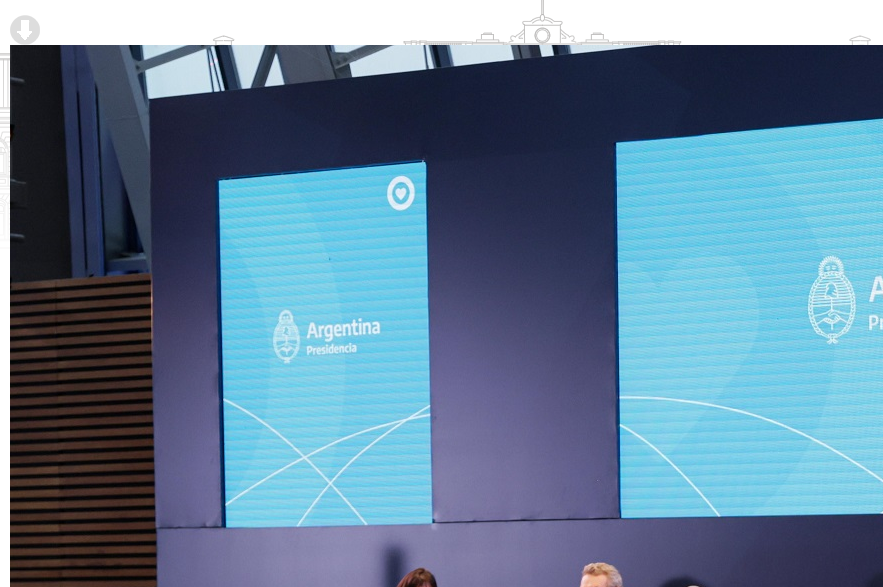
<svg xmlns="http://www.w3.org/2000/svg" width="883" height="587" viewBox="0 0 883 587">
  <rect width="100%" height="100%" fill="rgb(255,255,255)"/>
  <image x="0" y="0" width="871" height="249" href="pic1.png"/>
  <image x="10" y="15" width="30" height="30" href="pic2.png"/>
  <image x="10" y="45" width="873" height="542" href="pic3.png"/>
</svg>
